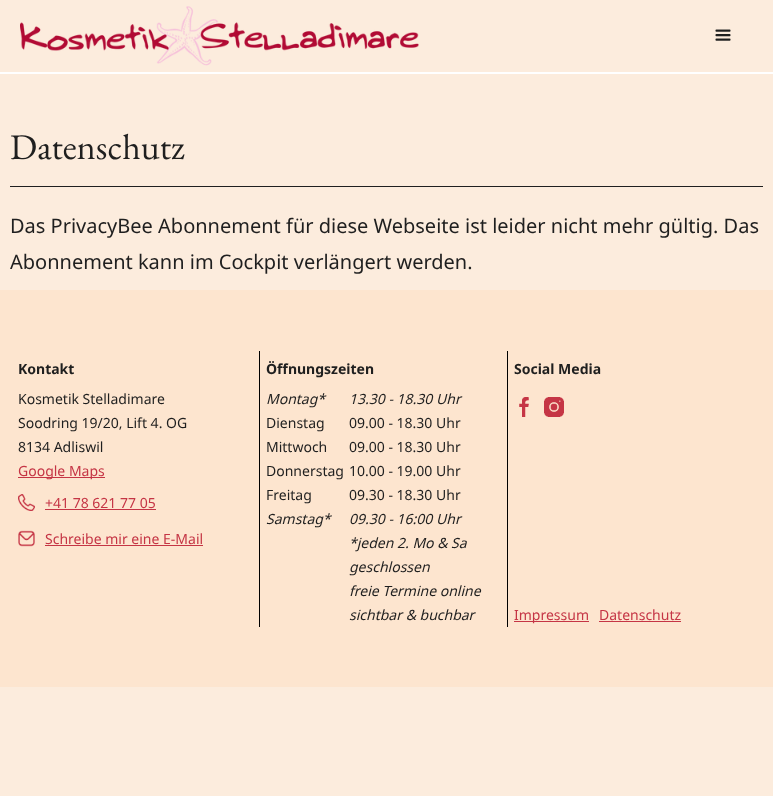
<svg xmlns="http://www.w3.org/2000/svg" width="773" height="796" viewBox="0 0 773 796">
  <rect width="100%" height="100%" fill="rgb(252,236,221)"/>
  <rect x="0" y="72" width="773" height="2" fill="rgb(255,255,255)"/>
  <image x="20" y="6" width="399" height="60" href="pic1.png"/>
  <image x="715" y="29" width="16" height="12" href="pic2.png"/>
  <text x="10" y="159" font-family="EB Garamond" font-size="36" fill="rgb(31,31,31)">Datenschutz</text>
  <rect x="10" y="186" width="753" height="1" fill="rgb(31,31,31)"/>
  <g font-family="Noto Sans" font-size="20" fill="rgb(31,31,31)">
    <text>
      <tspan x="10" y="233">Das PrivacyBee Abonnement für diese Webseite ist leider nicht mehr gültig. Das</tspan>
      <tspan x="10" y="269">Abonnement kann im Cockpit verlängert werden.</tspan>
    </text>
  </g>
  <rect x="0" y="290" width="773" height="397" fill="rgb(253,229,207)"/>
  <text x="18" y="374" font-family="Noto Sans" font-size="14" font-weight="bold" fill="rgb(31,31,31)">Kontakt</text>
  <g font-family="Noto Sans" font-size="14" fill="rgb(31,31,31)">
    <text>
      <tspan x="18" y="404">Kosmetik Stelladimare</tspan>
      <tspan x="18" y="428">‍Soodring 19/20, Lift 4. OG</tspan>
      <tspan x="18" y="452">8134 Adliswil</tspan>
    </text>
  </g>
  <rect x="18" y="477" width="87" height="1" fill="rgb(197,53,69)"/>
  <text x="18" y="476" font-family="Noto Sans" font-size="14" fill="rgb(197,53,69)">Google Maps</text>
  <image x="18" y="494" width="17" height="17" href="pic3.png"/>
  <text x="45" y="508" font-family="Noto Sans" font-size="14" fill="rgb(197,53,69)">+41 78 621 77 05</text>
  <rect x="45" y="509" width="111" height="1" fill="rgb(197,53,69)"/>
  <image x="18" y="530" width="17" height="17" href="pic4.png"/>
  <text x="45" y="544" font-family="Noto Sans" font-size="14" fill="rgb(197,53,69)">Schreibe mir eine E-Mail</text>
  <rect x="45" y="545" width="158" height="1" fill="rgb(197,53,69)"/>
  <rect x="259" y="351" width="1" height="276" fill="rgb(0,0,0)"/>
  <text x="266" y="374" font-family="Noto Sans" font-size="14" font-weight="bold" fill="rgb(31,31,31)">Öffnungszeiten</text>
  <g font-family="Noto Sans" font-size="14" font-style="italic" fill="rgb(31,31,31)">
    <text x="266" y="404">Montag*</text>
    <text x="349" y="404">13.30 - 18.30 Uhr</text>
  </g>
  <g font-family="Noto Sans" font-size="14" fill="rgb(31,31,31)">
    <text x="266" y="428">Dienstag</text>
    <text x="349" y="428">09.00 - 18.30 Uhr</text>
    <text x="266" y="452">Mittwoch</text>
    <text x="349" y="452">09.00 - 18.30 Uhr</text>
    <text x="266" y="476">Donnerstag</text>
    <text x="349" y="476">10.00 - 19.00 Uhr</text>
    <text x="266" y="500">Freitag</text>
    <text x="349" y="500">09.30 - 18.30 Uhr</text>
  </g>
  <g font-family="Noto Sans" font-size="14" font-style="italic" fill="rgb(31,31,31)">
    <text x="266" y="524">Samstag*</text>
    <text>
      <tspan x="349" y="524">09.30 - 16:00 Uhr</tspan>
      <tspan x="349" y="548">*jeden 2. Mo &amp; Sa</tspan>
      <tspan x="349" y="572">geschlossen</tspan>
      <tspan x="349" y="596">freie Termine online</tspan>
      <tspan x="349" y="620">sichtbar &amp; buchbar</tspan>
    </text>
  </g>
  <rect x="507" y="351" width="1" height="276" fill="rgb(0,0,0)"/>
  <text x="514" y="374" font-family="Noto Sans" font-size="14" font-weight="bold" fill="rgb(31,31,31)">Social Media</text>
  <image x="519" y="397" width="10" height="20" href="pic5.png"/>
  <image x="544" y="397" width="20" height="20" href="pic6.png"/>
  <rect x="514" y="621" width="75" height="1" fill="rgb(197,53,69)"/>
  <g font-family="Noto Sans" font-size="14" fill="rgb(197,53,69)">
    <text x="514" y="620">Impressum</text>
    <text x="599" y="620">Datenschutz</text>
  </g>
  <rect x="599" y="621" width="82" height="1" fill="rgb(197,53,69)"/>
</svg>
